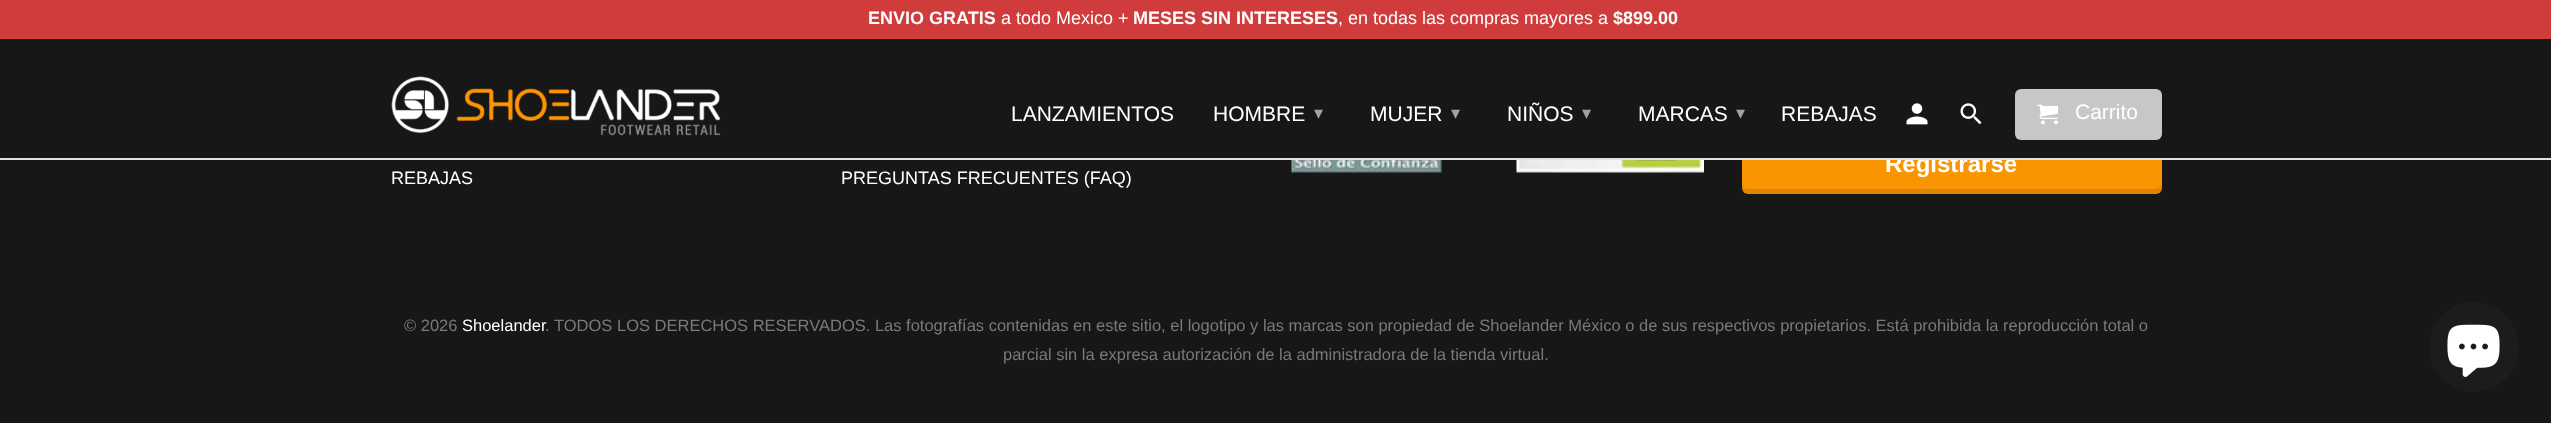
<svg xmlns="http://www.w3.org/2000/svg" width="2551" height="423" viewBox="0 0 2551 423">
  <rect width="100%" height="100%" fill="rgb(23,23,23)"/>
  <rect x="1742" y="137" width="420" height="57" rx="6" fill="rgb(249,149,0)"/>
  <text x="1885" y="172" font-family="Liberation Sans" font-size="24" font-weight="bold" fill="rgb(255,255,255)">Registrarse</text>
  <rect x="1742" y="137" width="420" height="21" fill="rgb(23,23,23)"/>
  <rect x="0" y="158" width="2551" height="2" fill="rgb(224,224,224)"/>
  <rect x="0" y="0" width="2551" height="39" fill="rgb(208,60,60)"/>
  <text x="868" y="24" font-family="Liberation Sans" font-size="18" font-weight="bold" fill="rgb(255,255,255)">ENVIO GRATIS</text>
  <text x="1001" y="24" font-family="Liberation Sans" font-size="18" fill="rgb(255,255,255)">a todo Mexico +</text>
  <text x="1133" y="24" font-family="Liberation Sans" font-size="18" font-weight="bold" fill="rgb(255,255,255)">MESES SIN INTERESES</text>
  <text x="1338" y="24" font-family="Liberation Sans" font-size="18" fill="rgb(255,255,255)">, en todas las compras mayores a</text>
  <text x="1613" y="24" font-family="Liberation Sans" font-size="18" font-weight="bold" fill="rgb(255,255,255)">$899.00</text>
  <image x="391" y="76" width="330" height="60" href="pic1.png"/>
  <g font-family="Liberation Sans" font-size="21" fill="rgb(255,255,255)">
    <text x="1011" y="121">LANZAMIENTOS</text>
    <text x="1213" y="121">HOMBRE</text>
  </g>
  <text x="1314" y="119" font-family="DejaVu Sans" font-size="18" fill="rgb(162,162,162)">▾</text>
  <text x="1370" y="121" font-family="Liberation Sans" font-size="21" fill="rgb(255,255,255)">MUJER</text>
  <text x="1451" y="119" font-family="DejaVu Sans" font-size="18" fill="rgb(162,162,162)">▾</text>
  <text x="1507" y="121" font-family="Liberation Sans" font-size="21" fill="rgb(255,255,255)">NIÑOS</text>
  <text x="1582" y="119" font-family="DejaVu Sans" font-size="18" fill="rgb(162,162,162)">▾</text>
  <text x="1638" y="121" font-family="Liberation Sans" font-size="21" fill="rgb(255,255,255)">MARCAS</text>
  <text x="1736" y="119" font-family="DejaVu Sans" font-size="18" fill="rgb(162,162,162)">▾</text>
  <text x="1781" y="121" font-family="Liberation Sans" font-size="21" fill="rgb(255,255,255)">REBAJAS</text>
  <image x="1906" y="103" width="22" height="22" href="pic2.png"/>
  <image x="1960" y="103" width="22" height="22" href="pic3.png"/>
  <rect x="2015" y="89" width="147" height="51" rx="6" fill="rgb(199,199,199)"/>
  <image x="2037" y="104" width="21" height="21" href="pic4.png"/>
  <text x="2075" y="119" font-family="Liberation Sans" font-size="21" fill="rgb(255,255,255)">Carrito</text>
  <image x="1291" y="160" width="151" height="13" href="pic5.png"/>
  <image x="1516" y="160" width="188" height="13" href="pic6.png"/>
  <path d="M1742 183V188C1742 191 1745 194 1748 194H2156C2159 194 2162 191 2162 188V183C2162 186 2159 189 2156 189H1748C1744 189 1742 186 1742 183Z" fill="rgba(0,0,0,0.1)"/>
  <g font-family="Liberation Sans" font-size="18" fill="rgb(255,255,255)">
    <text x="391" y="184">REBAJAS</text>
    <text x="841" y="184">PREGUNTAS FRECUENTES (FAQ)</text>
  </g>
  <text x="404" y="331" font-family="Liberation Sans" font-size="16.5" fill="rgb(122,122,122)">© 2026</text>
  <text x="462" y="331" font-family="Liberation Sans" font-size="16.5" fill="rgb(255,255,255)">Shoelander</text>
  <g font-family="Liberation Sans" font-size="16.5" fill="rgb(122,122,122)">
    <text x="545" y="331">.</text>
    <text x="554" y="331">TODOS LOS DERECHOS RESERVADOS. Las fotografías contenidas en este sitio, el logotipo y las marcas son propiedad de Shoelander México o de sus respectivos propietarios. Está prohibida la reproducción total o</text>
    <text x="1003" y="360">parcial sin la expresa autorización de la administradora de la tienda virtual.</text>
  </g>
  <circle cx="2474" cy="347" r="45" fill="rgb(27,28,30)"/>
  <image x="2447" y="324" width="53" height="53" href="pic7.png"/>
</svg>
